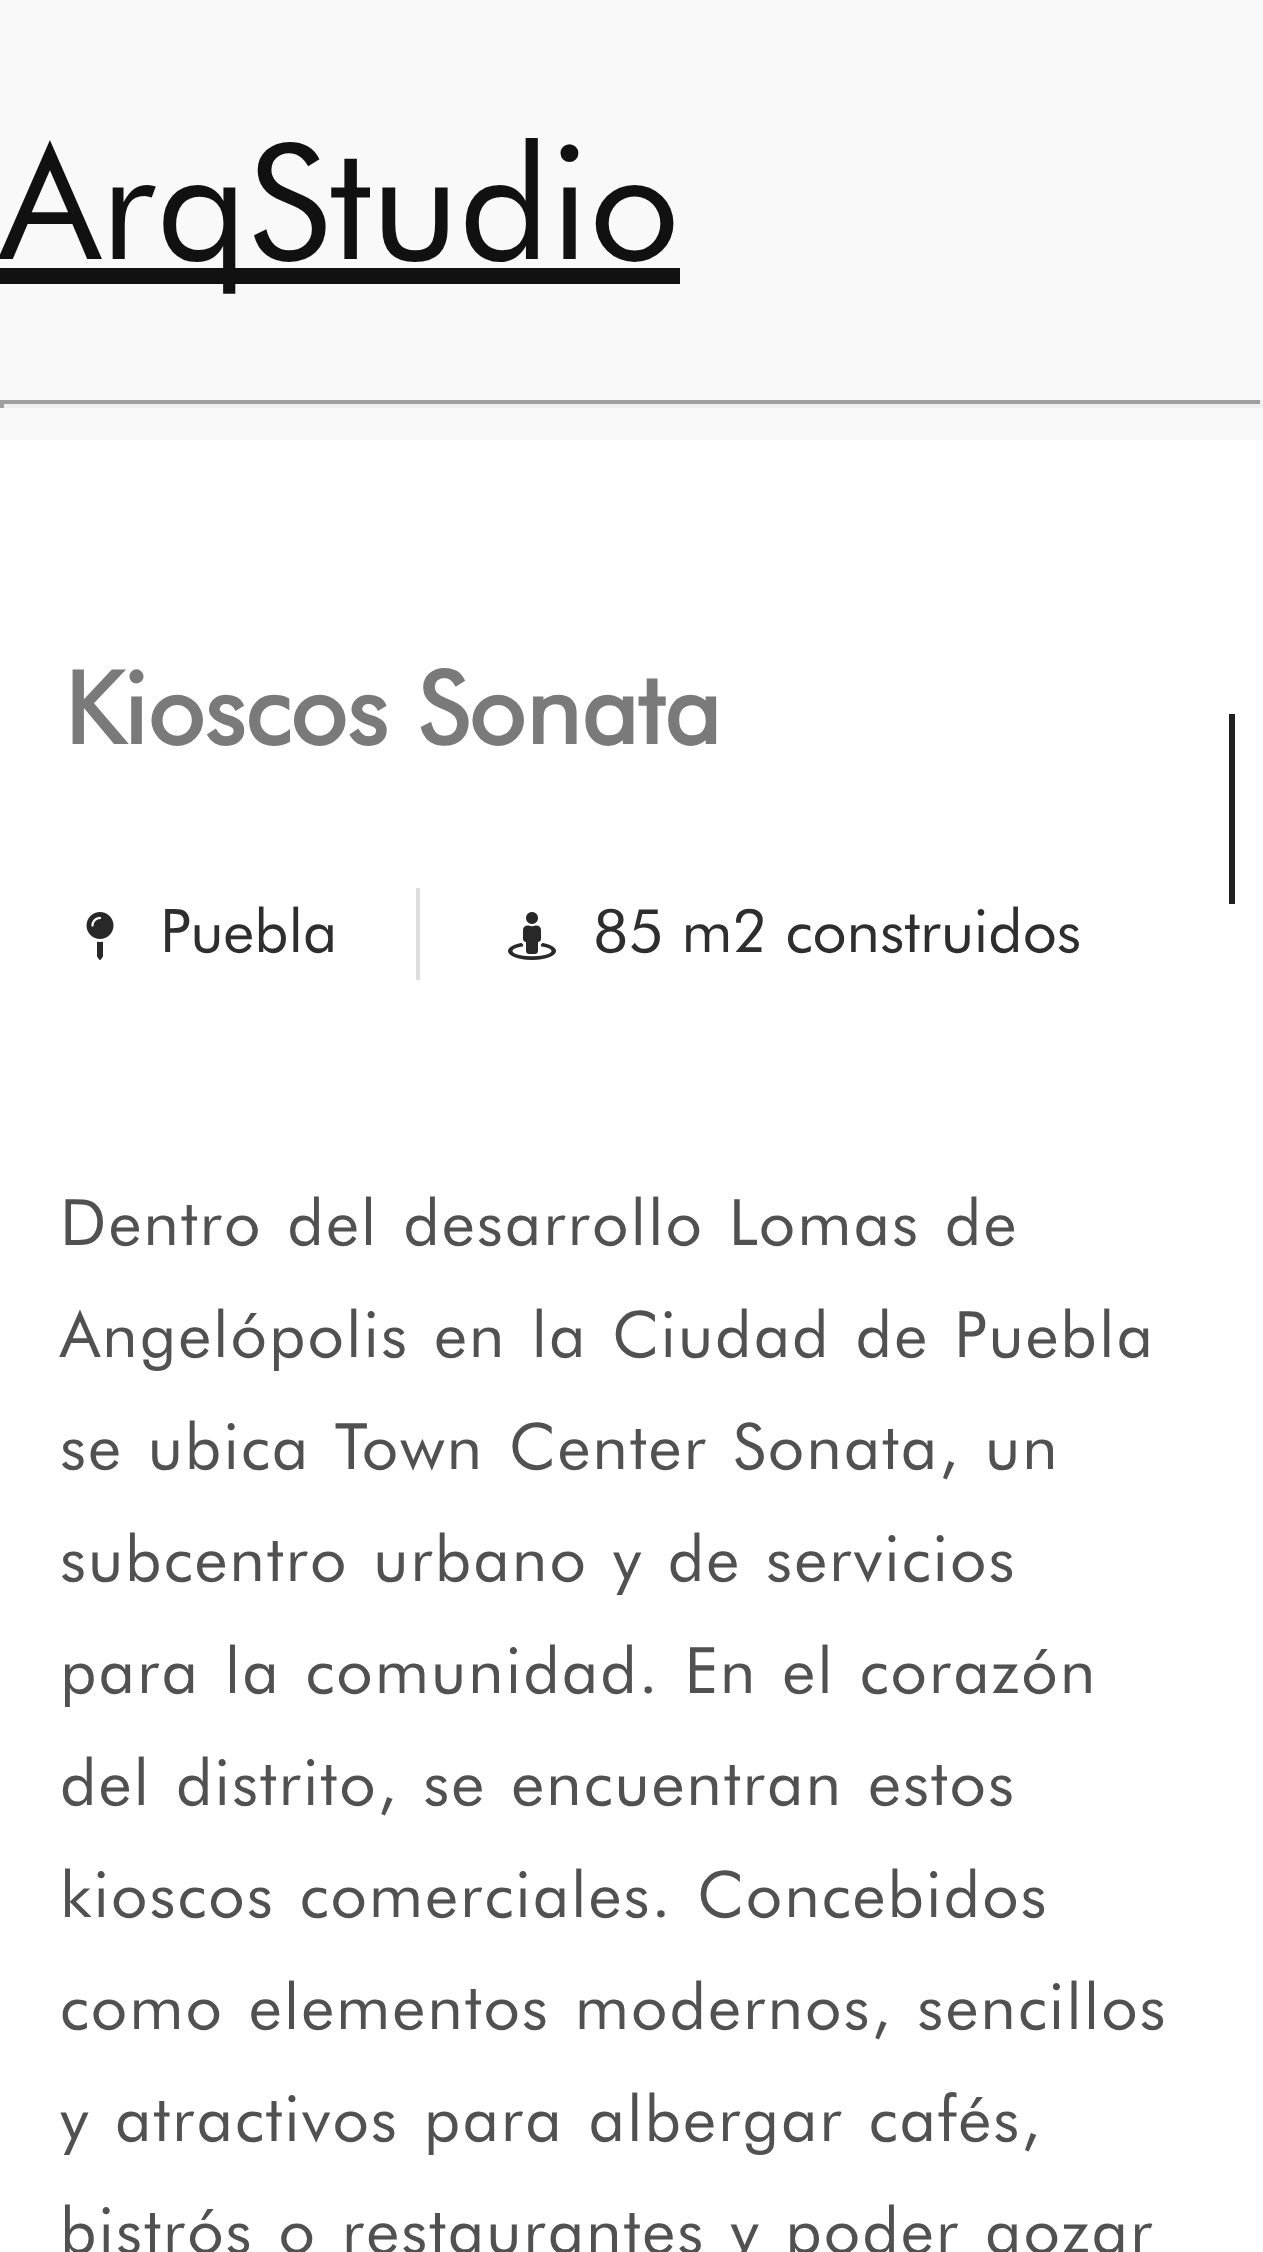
<svg xmlns="http://www.w3.org/2000/svg" width="1263" height="2252" viewBox="0 0 1263 2252">
  <rect width="100%" height="100%" fill="rgb(249,249,249)"/>
  <rect x="0" y="268" width="680" height="16" fill="rgb(17,17,17)"/>
  <text x="0" y="259" font-family="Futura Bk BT" font-size="160" fill="rgb(17,17,17)">ArqStudio</text>
  <rect x="0" y="400" width="1263" height="4" fill="rgb(159,159,159)"/>
  <rect x="1260" y="400" width="3" height="8" fill="rgb(238,238,238)"/>
  <rect x="0" y="404" width="1263" height="4" fill="rgb(238,238,238)"/>
  <rect x="0" y="400" width="4" height="8" fill="rgb(159,159,159)"/>
  <rect x="0" y="440" width="1263" height="1812" fill="rgb(255,255,255)"/>
  <text x="64" y="744" font-family="Futura Bk BT" font-size="100" font-weight="bold" fill="rgb(122,122,122)">Kioscos Sonata</text>
  <rect x="1229" y="714" width="6" height="190" fill="rgb(32,32,32)"/>
  <image x="86" y="912" width="28" height="48" href="pic1.png"/>
  <text x="160" y="952" font-family="Futura Bk BT" font-size="60" fill="rgb(46,46,46)">Puebla</text>
  <rect x="416" y="888" width="4" height="92" fill="rgb(221,221,221)"/>
  <image x="508" y="912" width="48" height="48" href="pic2.png"/>
  <text x="593" y="952" font-family="Futura Bk BT" font-size="60" fill="rgb(46,46,46)">85 m2 construidos</text>
  <g font-family="Futura Bk BT" font-size="64" letter-spacing="2" fill="rgb(81,81,81)">
    <text>
      <tspan x="60" y="1245" word-spacing="4">Dentro del desarrollo Lomas de</tspan>
      <tspan x="60" y="1357" word-spacing="4">Angelópolis en la Ciudad de Puebla</tspan>
      <tspan x="60" y="1469" word-spacing="4">se ubica Town Center Sonata, un</tspan>
      <tspan x="60" y="1581" word-spacing="4">subcentro urbano y de servicios</tspan>
      <tspan x="60" y="1693" word-spacing="4">para la comunidad. En el corazón</tspan>
      <tspan x="60" y="1805" word-spacing="4">del distrito, se encuentran estos</tspan>
      <tspan x="60" y="1917" word-spacing="4">kioscos comerciales. Concebidos</tspan>
      <tspan x="60" y="2029" word-spacing="4">como elementos modernos, sencillos</tspan>
      <tspan x="60" y="2141" word-spacing="4">y atractivos para albergar cafés,</tspan>
      <tspan x="60" y="2253" word-spacing="4">bistrós o restaurantes y poder gozar</tspan>
    </text>
  </g>
</svg>
